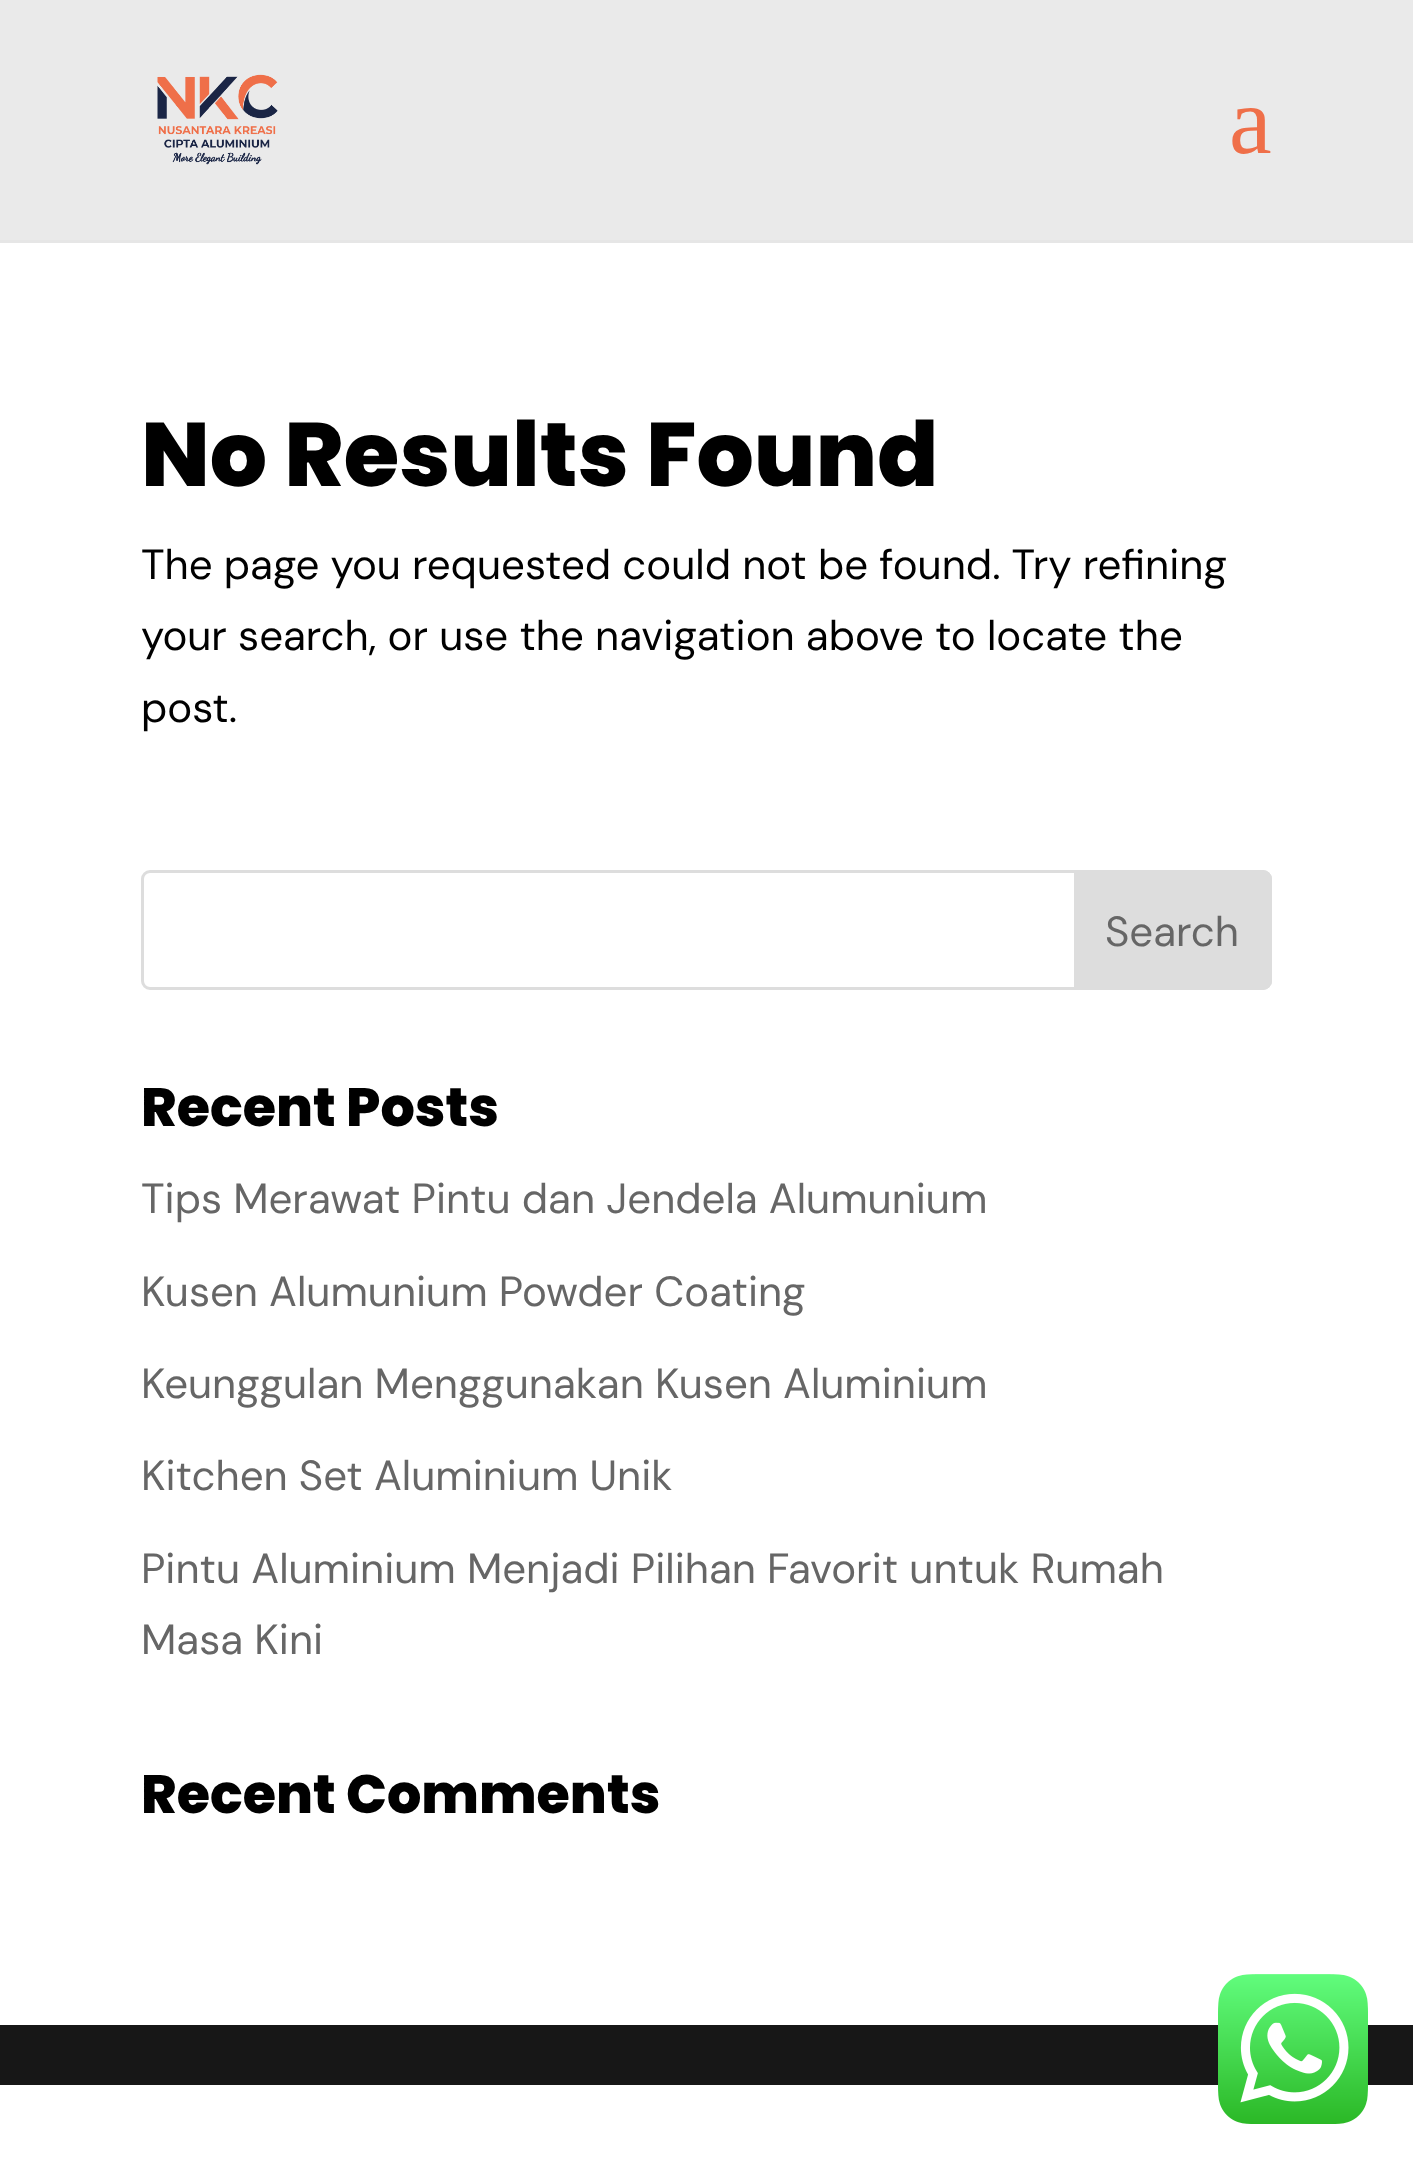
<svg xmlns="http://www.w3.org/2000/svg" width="1413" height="2168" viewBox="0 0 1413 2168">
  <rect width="100%" height="100%" fill="rgb(255,255,255)"/>
  <rect x="0" y="240" width="1413" height="3" fill="rgb(230,230,230)"/>
  <rect x="0" y="0" width="1413" height="240" fill="rgb(234,234,234)"/>
  <image x="157" y="74" width="121" height="91" href="pic1.png"/>
  <text x="1229" y="153" font-family="Liberation Serif" font-size="96" fill="rgb(239,111,73)">a</text>
  <text x="141" y="486" font-family="Poppins" font-size="90" font-weight="800" fill="rgb(0,0,0)">No Results Found</text>
  <g font-family="DM Sans" font-size="42" fill="rgb(0,0,0)">
    <text>
      <tspan x="141" y="579">The page you requested could not be found. Try refining</tspan>
      <tspan x="141" y="650">your search, or use the navigation above to locate the</tspan>
      <tspan x="141" y="722">post.</tspan>
    </text>
  </g>
  <rect x="142.5" y="871.5" width="1128" height="117" rx="7.5" fill="none" stroke="rgb(221,221,221)" stroke-width="3"/>
  <path d="M1075.5 871.5H1263C1267 871.5 1270.5 875 1270.5 879V981C1270.5 985 1267 988.5 1263 988.5H1075.5Z" fill="rgb(221,221,221)" stroke="rgb(221,221,221)" stroke-width="3"/>
  <text x="1105" y="946" font-family="DM Sans" font-size="42" fill="rgb(102,102,102)">Search</text>
  <text x="141" y="1126" font-family="Poppins" font-size="54" font-weight="800" fill="rgb(0,0,0)">Recent Posts</text>
  <g font-family="DM Sans" font-size="42" fill="rgb(102,102,102)">
    <text x="141" y="1213">Tips Merawat Pintu dan Jendela Alumunium</text>
    <text x="141" y="1306">Kusen Alumunium Powder Coating</text>
    <text x="141" y="1398">Keunggulan Menggunakan Kusen Aluminium</text>
    <text x="141" y="1490">Kitchen Set Aluminium Unik</text>
    <text>
      <tspan x="141" y="1583">Pintu Aluminium Menjadi Pilihan Favorit untuk Rumah</tspan>
      <tspan x="141" y="1654">Masa Kini</tspan>
    </text>
  </g>
  <text x="141" y="1813" font-family="Poppins" font-size="54" font-weight="800" fill="rgb(0,0,0)">Recent Comments</text>
  <rect x="0" y="2025" width="1413" height="60" fill="rgb(23,23,23)"/>
  <image x="1218" y="1974" width="150" height="150" href="pic2.png"/>
</svg>
